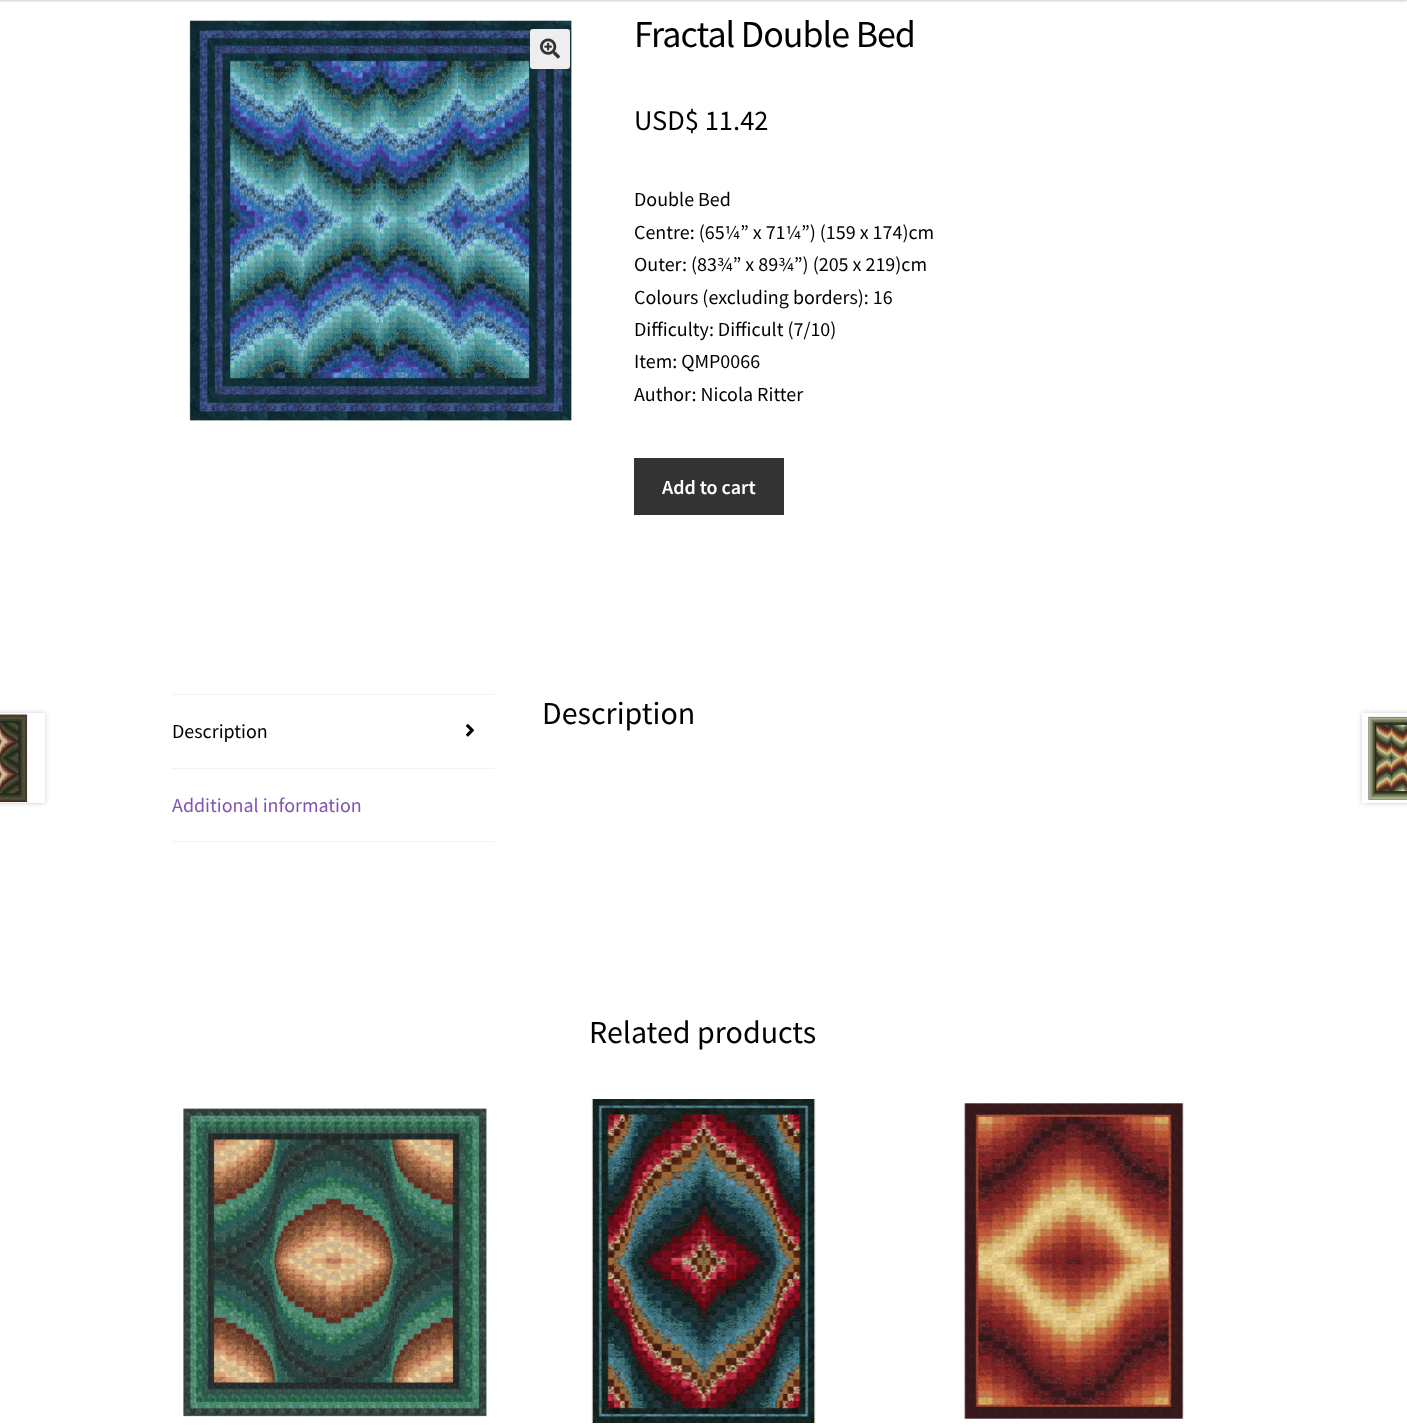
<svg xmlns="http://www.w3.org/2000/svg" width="1407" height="1426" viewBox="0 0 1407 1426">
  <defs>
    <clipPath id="clip1"><path d="M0 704H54V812H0ZM-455 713H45V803H-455Z" clip-rule="evenodd"/></clipPath>
    <clipPath id="clip2"><path d="M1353 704H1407V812H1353ZM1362 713H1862V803H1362Z" clip-rule="evenodd"/></clipPath>
  </defs>
  <rect width="100%" height="100%" fill="rgb(255,255,255)"/>
  <rect x="0" y="-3" width="1407" height="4" fill="rgba(0,0,0,0.2)" filter="blur(1px)"/>
  <image x="189" y="20" width="383" height="401" href="pic1.png"/>
  <rect x="530" y="29" width="40" height="40" rx="3" fill="rgb(238,238,238)"/>
  <image x="540" y="38" width="20" height="21" href="pic2.png"/>
  <text x="634" y="47" font-family="Source Sans Pro" font-size="38" letter-spacing="-1" fill="rgb(0,0,0)">Fractal Double Bed</text>
  <text x="634" y="130" font-family="Source Sans Pro" font-size="28.5" fill="rgb(0,0,0)">USD$ 11.42</text>
  <g font-family="Source Sans Pro" font-size="20" fill="rgb(0,0,0)">
    <text>
      <tspan x="634" y="206">Double Bed</tspan>
      <tspan x="634" y="239">Centre: (65¼” x 71¼”) (159 x 174)cm</tspan>
      <tspan x="634" y="271">Outer: (83¾” x 89¾”) (205 x 219)cm</tspan>
      <tspan x="634" y="304">Colours (excluding borders): 16</tspan>
      <tspan x="634" y="336">Difficulty: Difficult (7/10)</tspan>
      <tspan x="634" y="368">Item: QMP0066</tspan>
      <tspan x="634" y="401">Author: Nicola Ritter</tspan>
    </text>
  </g>
  <rect x="634" y="458" width="150" height="57" fill="rgb(51,51,51)"/>
  <text x="662" y="494" font-family="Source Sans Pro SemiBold" font-size="20" font-weight="600" fill="rgb(255,255,255)">Add to cart</text>
  <text x="542" y="724" font-family="Source Sans Pro" font-size="32" fill="rgb(0,0,0)">Description</text>
  <rect x="172" y="694" width="323" height="1" fill="rgb(242,242,242)"/>
  <rect x="172" y="768" width="323" height="1" fill="rgb(242,242,242)"/>
  <text x="172" y="738" font-family="Source Sans Pro" font-size="20" fill="rgb(0,0,0)">Description</text>
  <image x="466" y="724" width="8" height="13" href="pic3.png"/>
  <rect x="172" y="841" width="323" height="1" fill="rgb(242,242,242)"/>
  <text x="172" y="812" font-family="Source Sans Pro" font-size="20" fill="rgb(127,84,179)">Additional information</text>
  <g clip-path="url(#clip1)">
    <rect x="-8" y="713" width="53" height="90" fill="rgba(0,0,0,0.2)" filter="blur(2.5px)"/>
  </g>
  <image x="0" y="714" width="28" height="89" href="pic4.png"/>
  <g clip-path="url(#clip2)">
    <rect x="1362" y="713" width="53" height="90" fill="rgba(0,0,0,0.2)" filter="blur(2.5px)"/>
  </g>
  <image x="1368" y="716" width="39" height="84" href="pic5.png"/>
  <text x="589" y="1043" font-family="Source Sans Pro" font-size="32" fill="rgb(0,0,0)">Related products</text>
  <image x="183" y="1108" width="304" height="309" href="pic6.png"/>
  <image x="591" y="1099" width="225" height="324" href="pic7.png"/>
  <image x="963" y="1103" width="221" height="316" href="pic8.png"/>
</svg>
